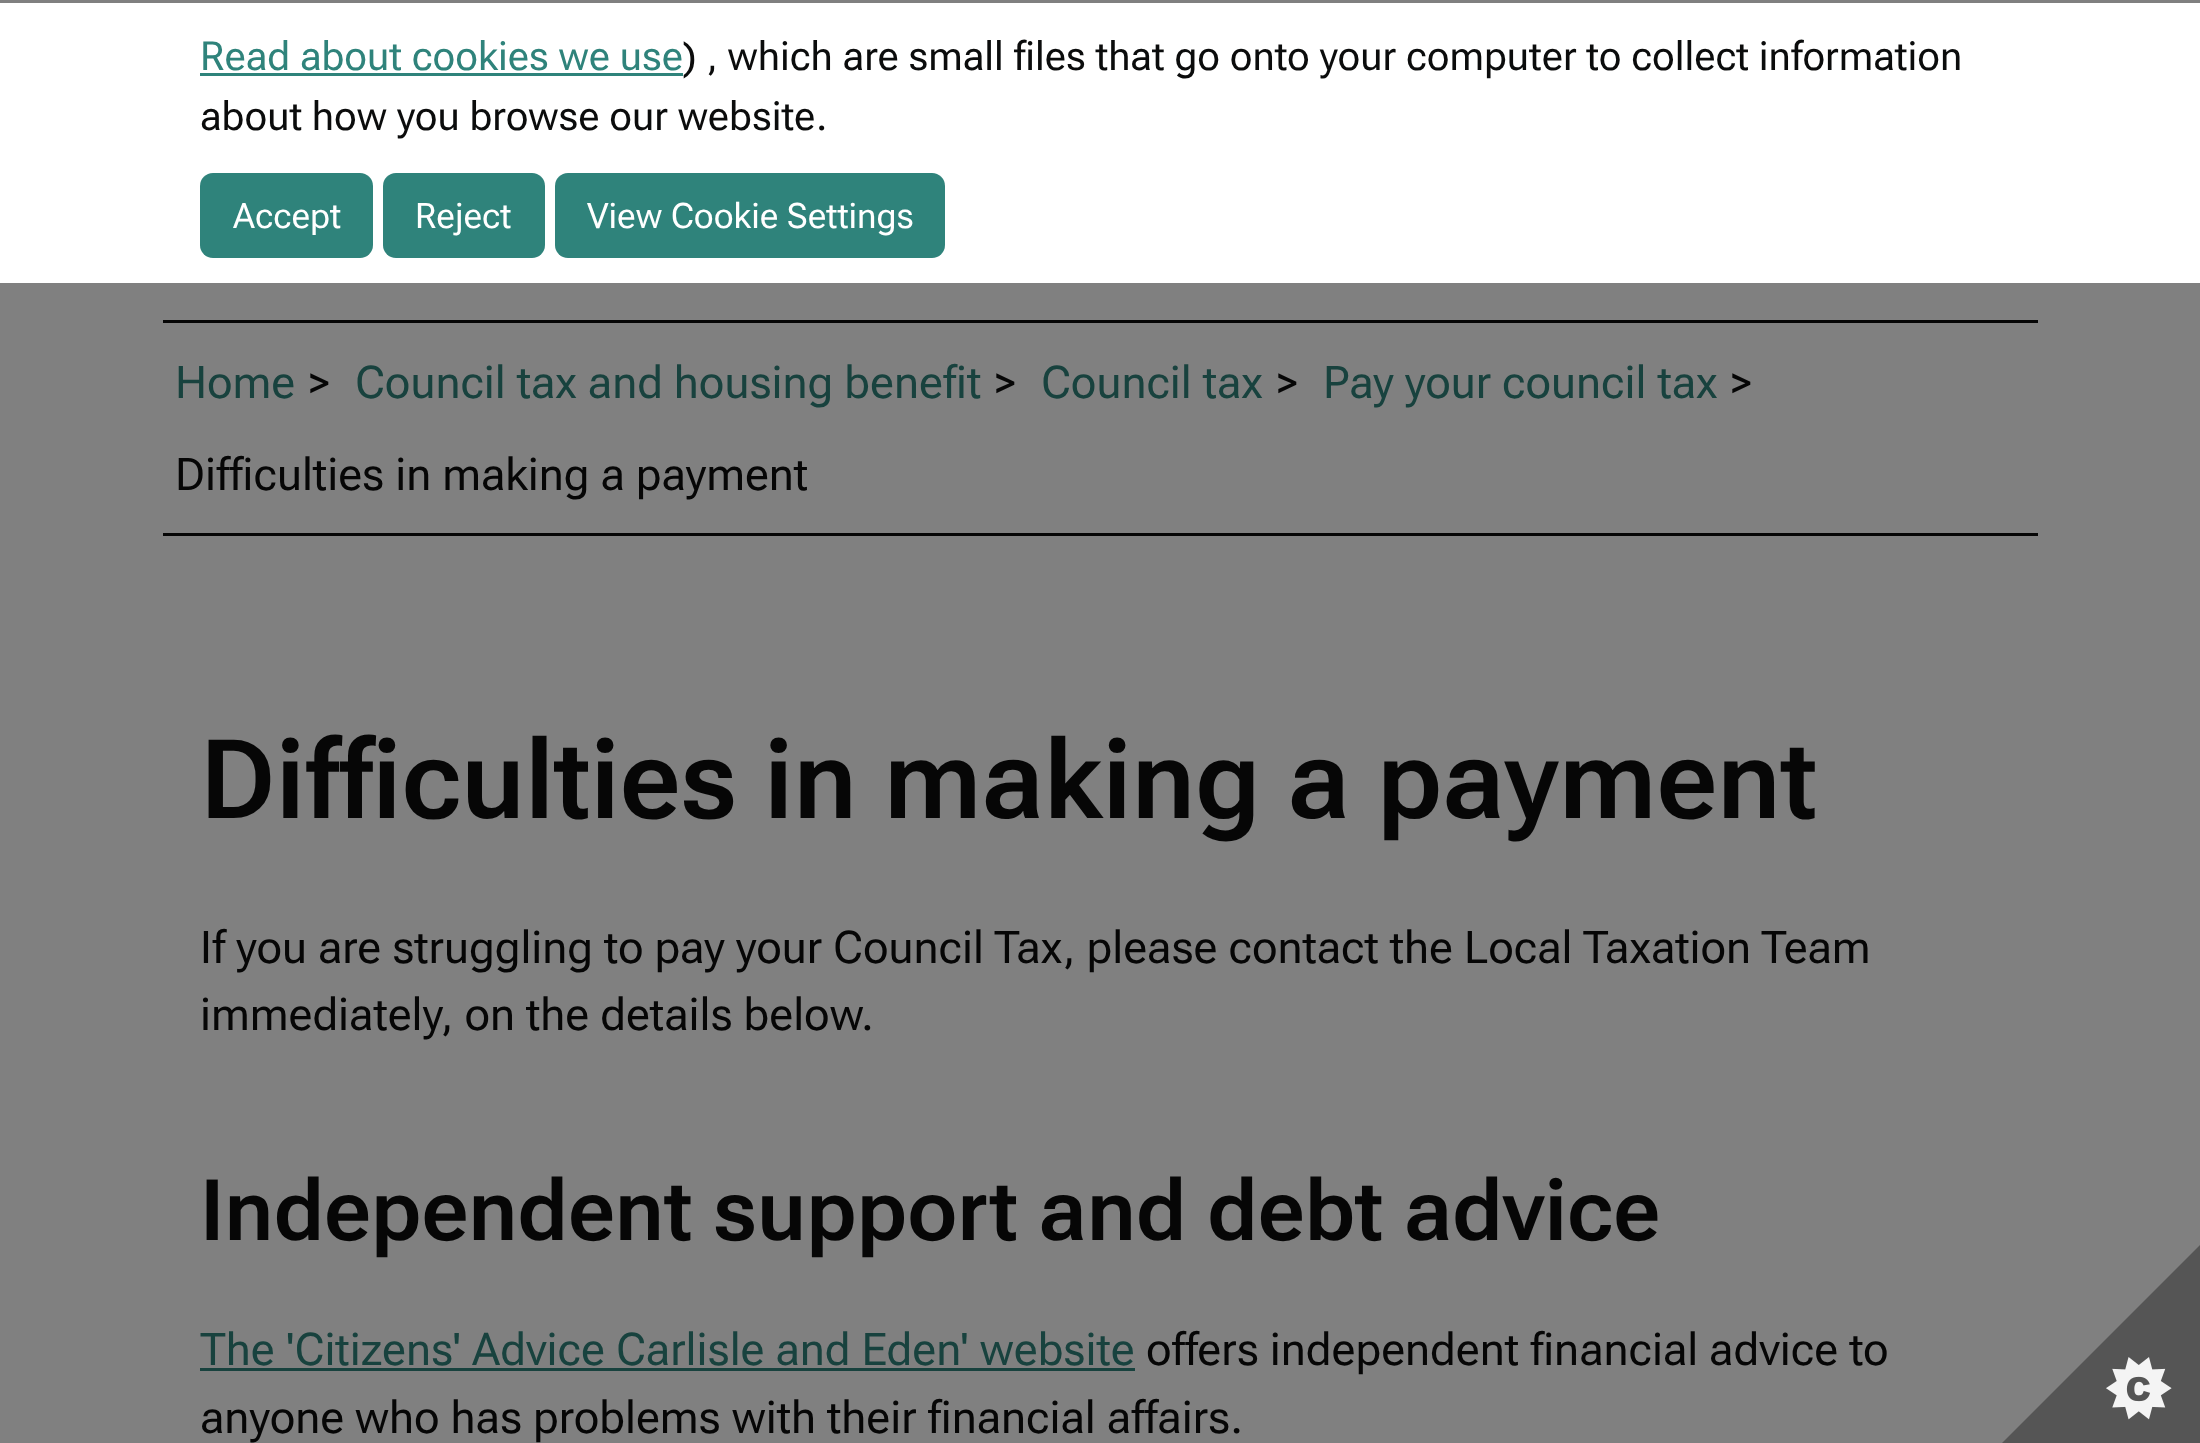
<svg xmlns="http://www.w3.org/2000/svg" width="2200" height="1443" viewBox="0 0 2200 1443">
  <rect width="100%" height="100%" fill="rgb(128,128,128)"/>
  <rect x="0" y="3" width="2200" height="280" fill="rgb(255,255,255)"/>
  <text x="200" y="70" font-family="Roboto Flex" font-size="40" fill="rgb(47,131,123)">Read about cookies we use</text>
  <rect x="200" y="73" width="483" height="3" fill="rgb(47,131,123)"/>
  <g font-family="Roboto Flex" font-size="40" fill="rgb(11,12,12)">
    <text x="683" y="70">) , which are small files that go onto your computer to collect information</text>
    <text x="200" y="130">about how you browse our website.</text>
  </g>
  <rect x="200" y="173" width="173" height="85" rx="13" fill="rgb(47,131,123)"/>
  <text x="233" y="228" font-family="Roboto Flex" font-size="35" fill="rgb(255,255,255)">Accept</text>
  <rect x="383" y="173" width="162" height="85" rx="13" fill="rgb(47,131,123)"/>
  <text x="415" y="228" font-family="Roboto Flex" font-size="35" fill="rgb(255,255,255)">Reject</text>
  <rect x="555" y="173" width="390" height="85" rx="13" fill="rgb(47,131,123)"/>
  <text x="587" y="228" font-family="Roboto Flex" font-size="35" fill="rgb(255,255,255)">View Cookie Settings</text>
  <rect x="163" y="320" width="1875" height="3" fill="rgb(6,6,6)"/>
  <rect x="163" y="533" width="1875" height="3" fill="rgb(6,6,6)"/>
  <text x="175" y="398" font-family="Roboto Flex" font-size="45" fill="rgb(24,66,62)">Home</text>
  <text x="308" y="398" font-family="Roboto Flex" font-size="45" fill="rgb(6,6,6)">&gt;</text>
  <text x="355" y="398" font-family="Roboto Flex" font-size="45" fill="rgb(24,66,62)">Council tax and housing benefit</text>
  <text x="994" y="398" font-family="Roboto Flex" font-size="45" fill="rgb(6,6,6)">&gt;</text>
  <text x="1041" y="398" font-family="Roboto Flex" font-size="45" fill="rgb(24,66,62)">Council tax</text>
  <text x="1276" y="398" font-family="Roboto Flex" font-size="45" fill="rgb(6,6,6)">&gt;</text>
  <text x="1323" y="398" font-family="Roboto Flex" font-size="45" fill="rgb(24,66,62)">Pay your council tax</text>
  <g font-family="Roboto Flex" font-size="45" fill="rgb(6,6,6)">
    <text x="1730" y="398">&gt;</text>
    <text x="175" y="490">Difficulties in making a payment</text>
  </g>
  <text x="200" y="818" font-family="Roboto Flex" font-size="110" font-weight="600" fill="rgb(6,6,6)">Difficulties in making a payment</text>
  <g font-family="Roboto Flex" font-size="45" fill="rgb(6,6,6)">
    <text>
      <tspan x="200" y="963">If you are struggling to pay your Council Tax, please contact the Local Taxation Team</tspan>
      <tspan x="200" y="1030">immediately, on the details below.</tspan>
    </text>
  </g>
  <text x="200" y="1240" font-family="Roboto Flex" font-size="85" font-weight="600" fill="rgb(6,6,6)">Independent support and debt advice</text>
  <text x="200" y="1365" font-family="Roboto Flex" font-size="45" fill="rgb(24,66,62)">The 'Citizens' Advice Carlisle and Eden' website</text>
  <rect x="200" y="1368" width="935" height="3" fill="rgb(24,66,62)"/>
  <g font-family="Roboto Flex" font-size="45" fill="rgb(6,6,6)">
    <text x="1146" y="1365">offers independent financial advice to</text>
    <text x="200" y="1433">anyone who has problems with their financial affairs.</text>
  </g>
  <image x="2002" y="1245" width="198" height="198" href="pic1.png"/>
</svg>
